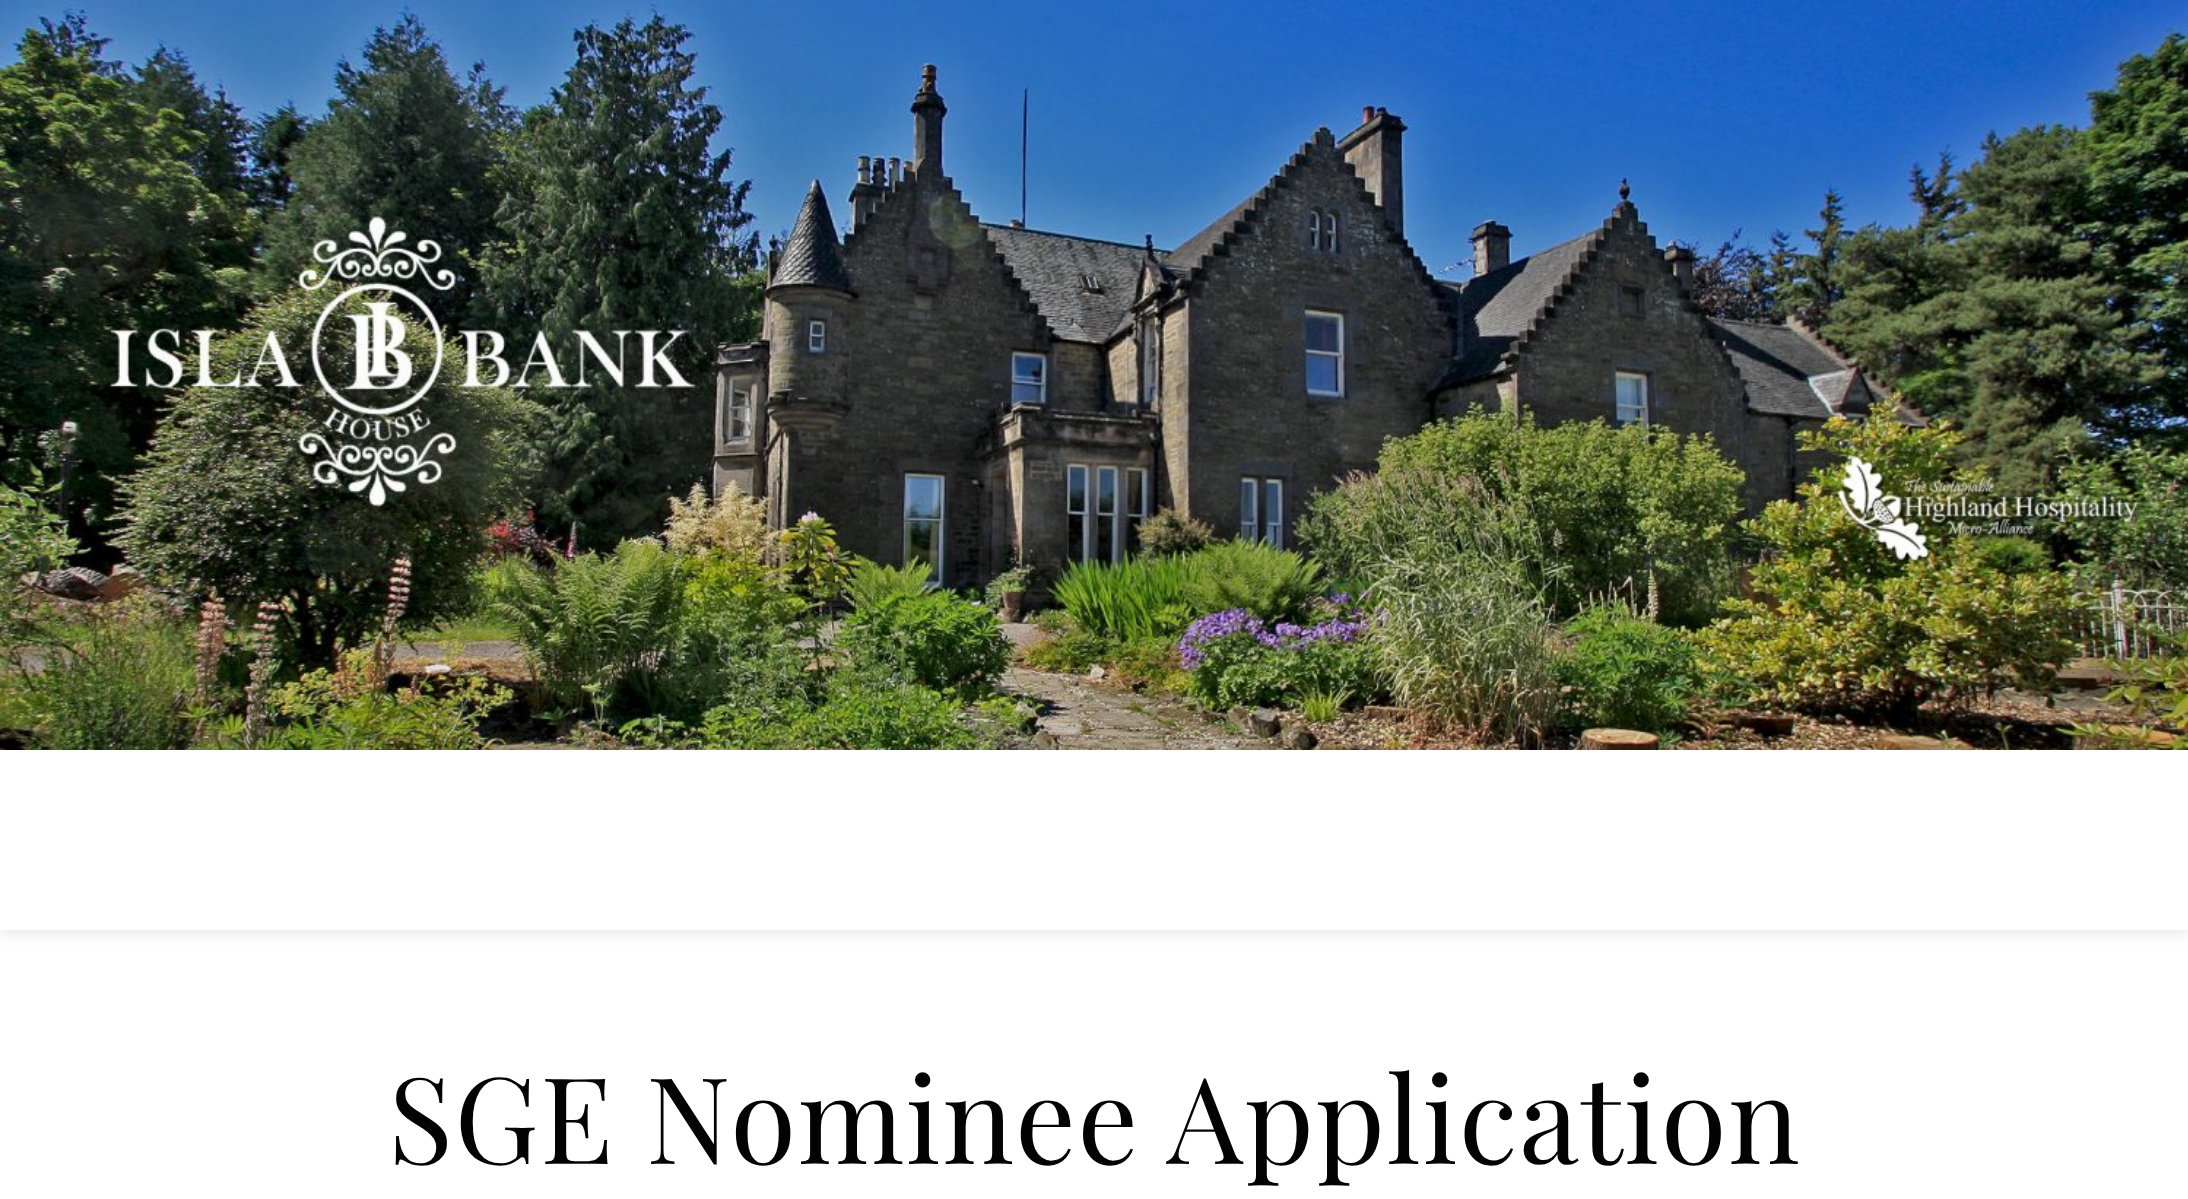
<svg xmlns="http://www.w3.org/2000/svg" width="2188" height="1199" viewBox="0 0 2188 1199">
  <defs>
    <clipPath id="clip1"><path d="M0 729H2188V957H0ZM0 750H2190V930H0Z" clip-rule="evenodd"/></clipPath>
  </defs>
  <rect width="100%" height="100%" fill="rgb(255,255,255)"/>
  <image x="0" y="0" width="2188" height="750" href="pic1.png"/>
  <g clip-path="url(#clip1)">
    <rect x="0" y="753" width="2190" height="180" fill="rgba(0,0,0,0.1)" filter="blur(7.5px)"/>
  </g>
  <text x="388" y="1164" font-family="Playfair Display" font-size="120" letter-spacing="1.5" fill="rgb(3,3,3)">SGE Nominee Application</text>
</svg>
